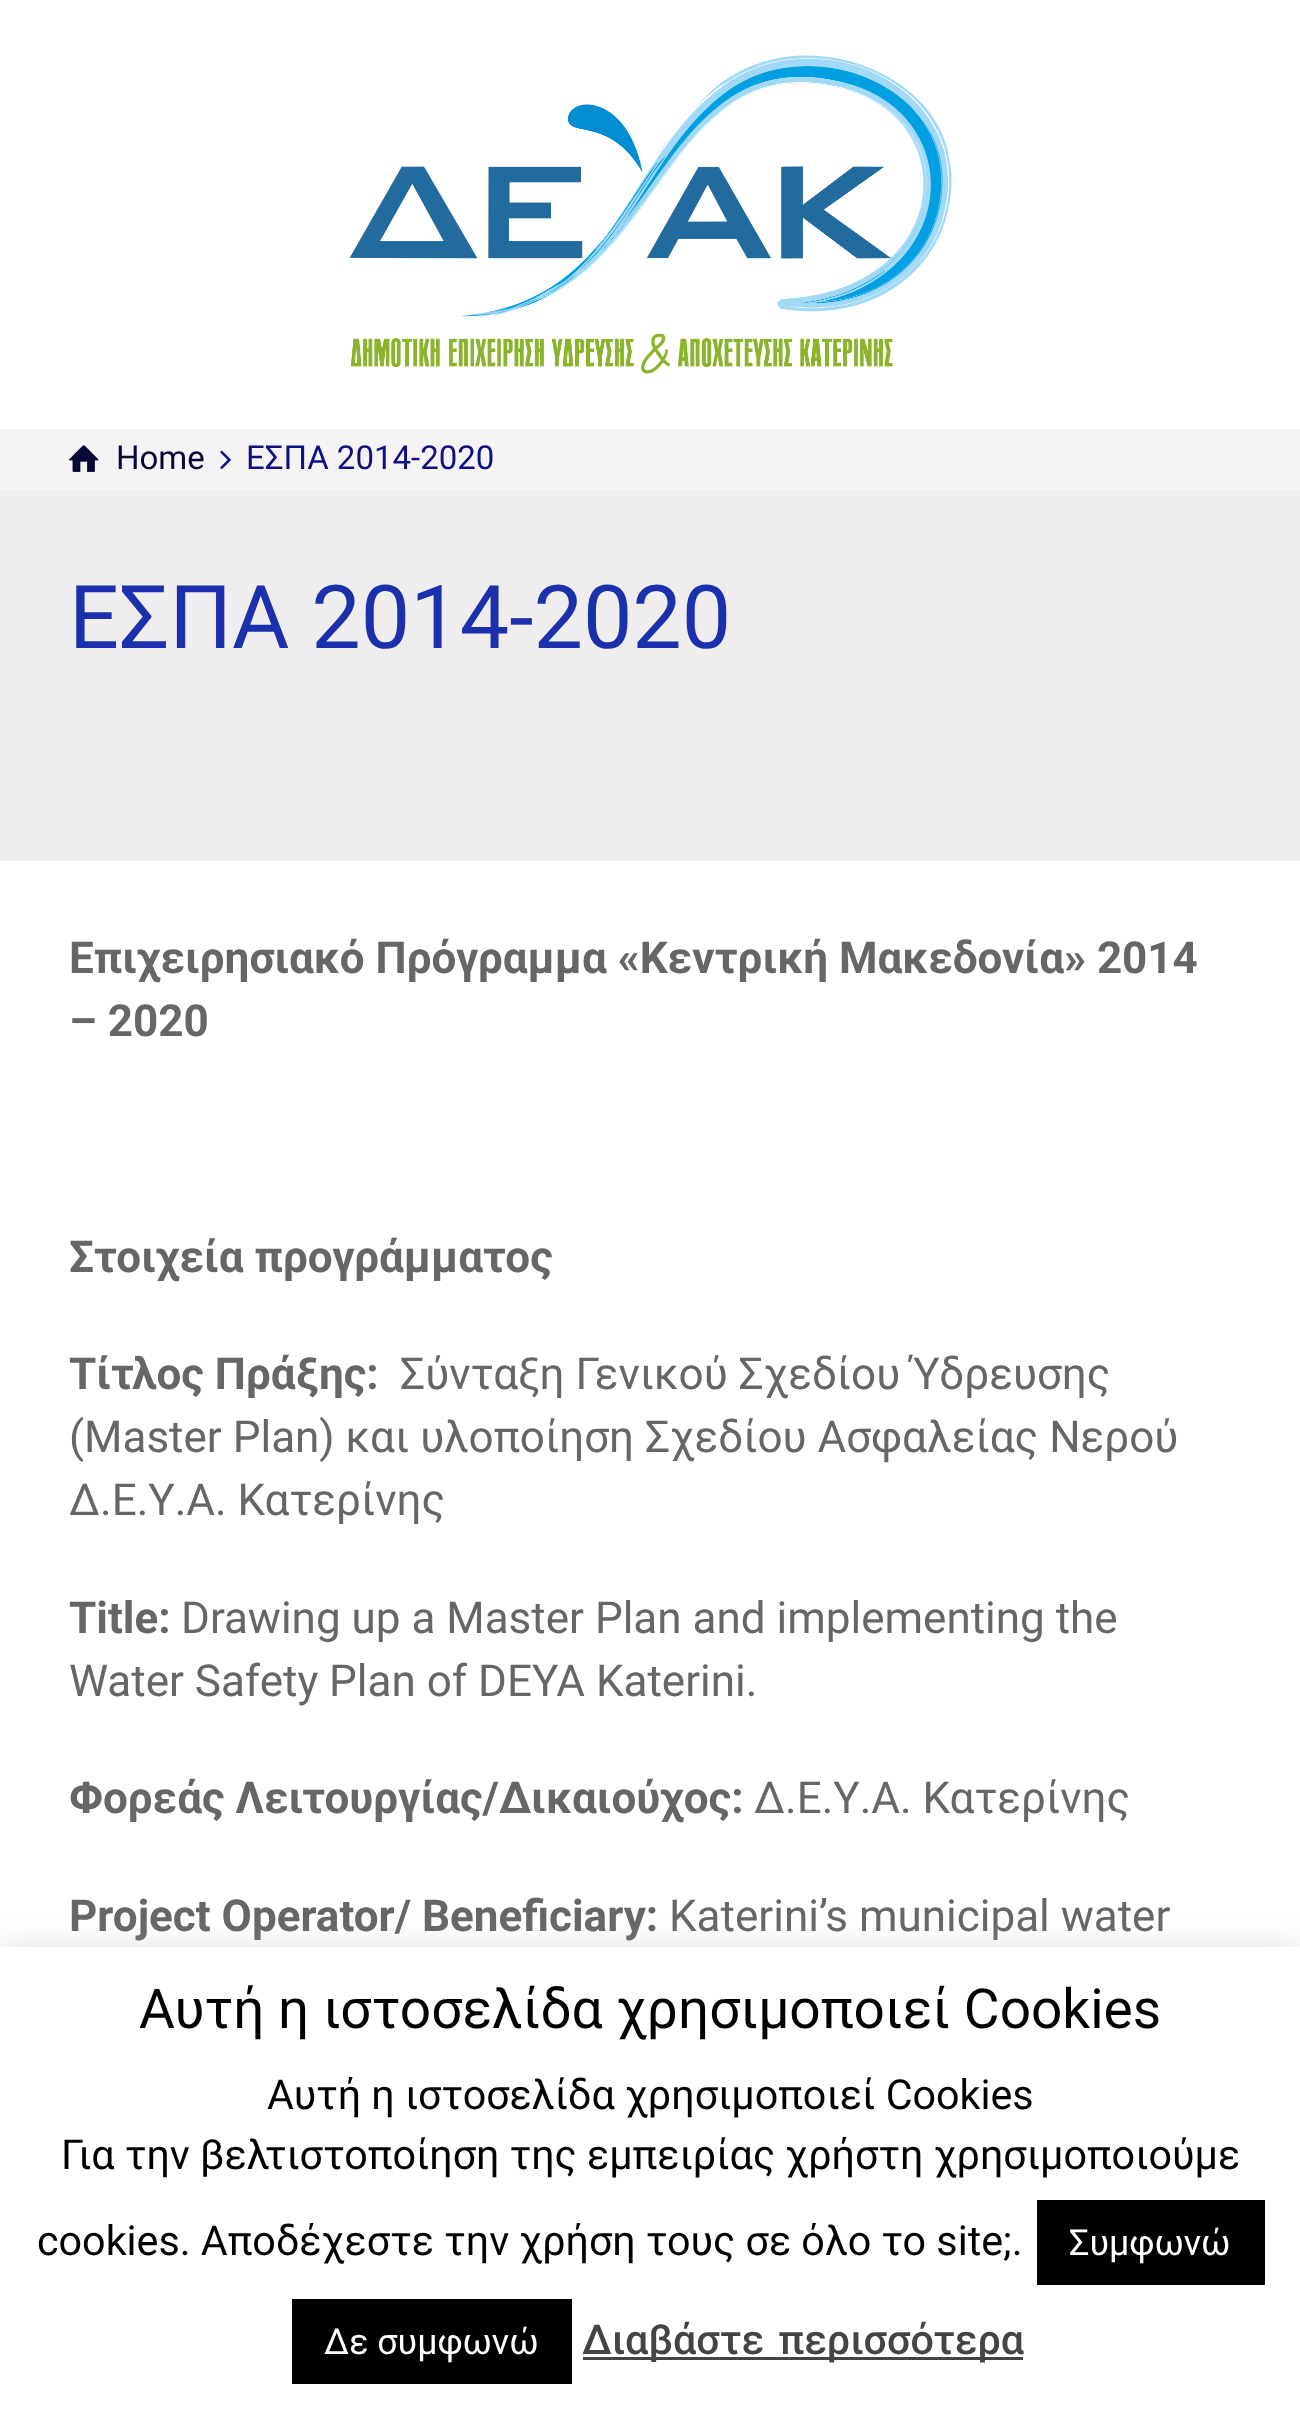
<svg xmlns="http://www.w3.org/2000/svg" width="1300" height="2417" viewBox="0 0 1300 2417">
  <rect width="100%" height="100%" fill="rgb(255,255,255)"/>
  <image x="350" y="55" width="602" height="319" href="pic1.png"/>
  <rect x="0" y="490" width="1300" height="371" fill="rgb(239,237,237)"/>
  <rect x="0" y="429" width="1300" height="61" fill="rgb(245,243,243)"/>
  <image x="68" y="445" width="31" height="27" href="pic2.png"/>
  <text x="116" y="469" font-family="Roboto" font-size="33" fill="rgb(7,8,56)">Home</text>
  <image x="220" y="450" width="11" height="19" href="pic3.png"/>
  <text x="246" y="469" font-family="Roboto" font-size="33" fill="rgb(13,16,130)">ΕΣΠΑ 2014-2020</text>
  <text x="69" y="648" font-family="Roboto" font-size="88" fill="rgb(26,48,173)">ΕΣΠΑ 2014-2020</text>
  <g font-family="Roboto" font-size="44" font-weight="bold" fill="rgb(102,102,102)">
    <text>
      <tspan x="69" y="973">Επιχειρησιακό Πρόγραμμα «Κεντρική Μακεδονία» 2014</tspan>
      <tspan x="69" y="1036">– 2020</tspan>
    </text>
    <text x="69" y="1272">Στοιχεία προγράμματος</text>
    <text x="69" y="1389">Τίτλος Πράξης:</text>
  </g>
  <g font-family="Roboto" font-size="44" fill="rgb(102,102,102)">
    <text x="400" y="1389">Σύνταξη Γενικού Σχεδίου Ύδρευσης</text>
    <text>
      <tspan x="69" y="1452">(Master Plan) και υλοποίηση Σχεδίου Ασφαλείας Νερού</tspan>
      <tspan x="69" y="1515">Δ.Ε.Υ.Α. Κατερίνης</tspan>
    </text>
  </g>
  <text x="69" y="1633" font-family="Roboto" font-size="44" font-weight="bold" fill="rgb(102,102,102)">Title:</text>
  <g font-family="Roboto" font-size="44" fill="rgb(102,102,102)">
    <text x="181" y="1633">Drawing up a Master Plan and implementing the</text>
    <text x="69" y="1696">Water Safety Plan of DEYA Katerini.</text>
  </g>
  <text x="69" y="1813" font-family="Roboto" font-size="44" font-weight="bold" fill="rgb(102,102,102)">Φορεάς Λειτουργίας/Δικαιούχος:</text>
  <text x="754" y="1813" font-family="Roboto" font-size="44" fill="rgb(102,102,102)">Δ.Ε.Υ.Α. Κατερίνης</text>
  <text x="69" y="1931" font-family="Roboto" font-size="44" font-weight="bold" fill="rgb(102,102,102)">Project Operator/ Βeneficiary:</text>
  <text x="669" y="1931" font-family="Roboto" font-size="44" fill="rgb(102,102,102)">Katerini’s municipal water</text>
  <rect x="0" y="1944" width="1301" height="471" fill="rgba(172,171,171,0.3)" filter="blur(14px)"/>
  <rect x="0" y="1947" width="1300" height="470" fill="rgb(255,255,255)"/>
  <text x="139" y="2028" font-family="Roboto" font-size="55" fill="rgb(0,0,0)">Αυτή η ιστοσελίδα χρησιμοποιεί Cookies</text>
  <g font-family="Roboto" font-size="41.25" fill="rgb(0,0,0)">
    <text x="267" y="2109">Αυτή η ιστοσελίδα χρησιμοποιεί Cookies</text>
    <text x="61" y="2169">Για την βελτιστοποίηση της εμπειρίας χρήστη χρησιμοποιούμε</text>
    <text x="37" y="2255">cookies. Αποδέχεστε την χρήση τους σε όλο το site;.</text>
  </g>
  <rect x="1037" y="2200" width="228" height="85" fill="rgb(0,0,0)"/>
  <text x="1069" y="2255" font-family="Roboto" font-size="35.75" fill="rgb(255,255,255)">Συμφωνώ</text>
  <rect x="292" y="2299" width="280" height="85" fill="rgb(0,0,0)"/>
  <text x="324" y="2354" font-family="Roboto" font-size="35.75" fill="rgb(255,255,255)">Δε συμφωνώ</text>
  <rect x="583" y="2357" width="440" height="3" fill="rgb(68,68,68)"/>
  <text x="582" y="2354" word-spacing="4" font-family="Roboto" font-size="41.25" font-weight="500" fill="rgb(68,68,68)">Διαβάστε περισσότερα</text>
</svg>
